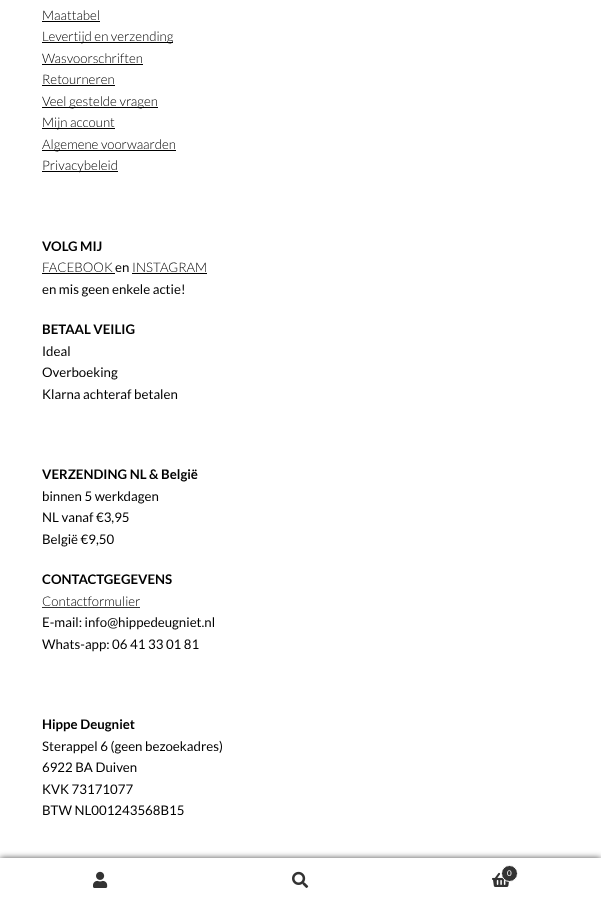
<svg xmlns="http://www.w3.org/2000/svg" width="601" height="901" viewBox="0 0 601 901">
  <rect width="100%" height="100%" fill="rgb(255,255,255)"/>
  <text x="42" y="20" font-family="Lato" font-size="13.25" font-weight="300" fill="rgb(0,0,0)">Maattabel</text>
  <rect x="42" y="21" width="58" height="1" fill="rgb(0,0,0)"/>
  <rect x="42" y="42" width="131" height="1" fill="rgb(0,0,0)"/>
  <g font-family="Lato" font-size="13.25" font-weight="300" fill="rgb(0,0,0)">
    <text>
      <tspan x="42" y="41">Levertijd en verzending</tspan>
      <tspan x="42" y="63">Wasvoorschriften</tspan>
    </text>
  </g>
  <rect x="42" y="64" width="101" height="1" fill="rgb(0,0,0)"/>
  <text x="42" y="84" font-family="Lato" font-size="13.25" font-weight="300" fill="rgb(0,0,0)">Retourneren</text>
  <rect x="42" y="85" width="73" height="1" fill="rgb(0,0,0)"/>
  <rect x="42" y="107" width="116" height="1" fill="rgb(0,0,0)"/>
  <text x="42" y="106" font-family="Lato" font-size="13.25" font-weight="300" fill="rgb(0,0,0)">Veel gestelde vragen</text>
  <rect x="42" y="128" width="73" height="1" fill="rgb(0,0,0)"/>
  <text x="42" y="127" font-family="Lato" font-size="13.25" font-weight="300" fill="rgb(0,0,0)">Mijn account</text>
  <rect x="42" y="150" width="134" height="1" fill="rgb(0,0,0)"/>
  <text x="42" y="149" font-family="Lato" font-size="13.25" font-weight="300" fill="rgb(0,0,0)">Algemene voorwaarden</text>
  <rect x="42" y="171" width="76" height="1" fill="rgb(0,0,0)"/>
  <text x="42" y="170" font-family="Lato" font-size="13.25" font-weight="300" fill="rgb(0,0,0)">Privacybeleid</text>
  <text x="42" y="251" font-family="Lato" font-size="13.25" font-weight="bold" fill="rgb(0,0,0)">VOLG MIJ</text>
  <text x="42" y="272" font-family="Lato" font-size="13.25" font-weight="300" fill="rgb(0,0,0)">FACEBOOK</text>
  <rect x="42" y="273" width="73" height="1" fill="rgb(0,0,0)"/>
  <text x="115" y="272" font-family="Lato" font-size="13.25" fill="rgb(0,0,0)">en</text>
  <text x="132" y="272" font-family="Lato" font-size="13.25" font-weight="300" fill="rgb(0,0,0)">INSTAGRAM</text>
  <rect x="132" y="273" width="75" height="1" fill="rgb(0,0,0)"/>
  <text x="42" y="294" font-family="Lato" font-size="13.25" fill="rgb(0,0,0)">en mis geen enkele actie!</text>
  <text x="42" y="334" font-family="Lato" font-size="13.25" font-weight="bold" fill="rgb(0,0,0)">BETAAL VEILIG</text>
  <g font-family="Lato" font-size="13.25" fill="rgb(0,0,0)">
    <text>
      <tspan x="42" y="356">Ideal</tspan>
      <tspan x="42" y="377">Overboeking</tspan>
      <tspan x="42" y="399">Klarna achteraf betalen</tspan>
    </text>
  </g>
  <text x="42" y="479" font-family="Lato" font-size="13.25" font-weight="bold" fill="rgb(0,0,0)">VERZENDING NL &amp; België</text>
  <g font-family="Lato" font-size="13.25" fill="rgb(0,0,0)">
    <text>
      <tspan x="42" y="501">binnen 5 werkdagen</tspan>
      <tspan x="42" y="522">NL vanaf €3,95</tspan>
      <tspan x="42" y="544">België €9,50</tspan>
    </text>
  </g>
  <text x="42" y="584" font-family="Lato" font-size="13.25" font-weight="bold" fill="rgb(0,0,0)">CONTACTGEGEVENS</text>
  <text x="42" y="606" font-family="Lato" font-size="13.25" font-weight="300" fill="rgb(0,0,0)">Contactformulier</text>
  <rect x="42" y="607" width="98" height="1" fill="rgb(51,51,51)"/>
  <g font-family="Lato" font-size="13.25" fill="rgb(0,0,0)">
    <text>
      <tspan x="42" y="627">E-mail: info@hippedeugniet.nl</tspan>
      <tspan x="42" y="649">Whats-app: 06 41 33 01 81</tspan>
    </text>
  </g>
  <text x="42" y="729" font-family="Lato" font-size="13.25" font-weight="bold" fill="rgb(0,0,0)">Hippe Deugniet</text>
  <g font-family="Lato" font-size="13.25" fill="rgb(0,0,0)">
    <text>
      <tspan x="42" y="751">Sterappel 6 (geen bezoekadres)</tspan>
      <tspan x="42" y="772">6922 BA Duiven</tspan>
      <tspan x="42" y="794">KVK 73171077</tspan>
      <tspan x="42" y="815">BTW NL001243568B15</tspan>
    </text>
  </g>
  <rect x="0" y="858" width="601" height="43" fill="rgba(0,0,0,0.7)" filter="blur(3px)"/>
  <rect x="0" y="858" width="601" height="1" fill="rgb(255,255,255)"/>
  <rect x="0" y="859" width="601" height="42" fill="rgb(255,255,255)"/>
  <image x="93" y="871" width="15" height="17" href="pic1.png"/>
  <image x="292" y="871" width="17" height="17" href="pic2.png"/>
  <image x="492" y="872" width="17" height="15" href="pic3.png"/>
  <circle cx="509.5" cy="873.5" r="8" fill="rgb(51,51,51)" stroke="rgb(255,255,255)"/>
  <text x="507" y="876" font-family="Lato" font-size="8" fill="rgb(255,255,255)">0</text>
</svg>
